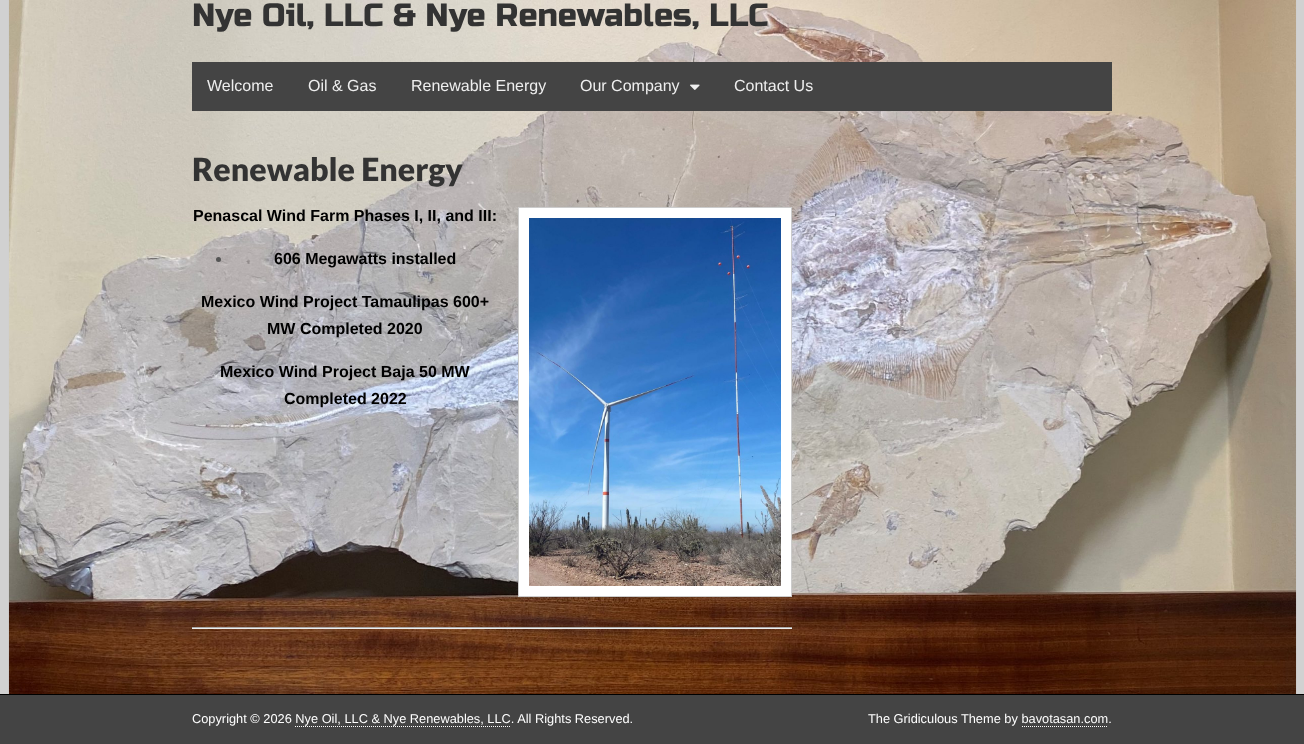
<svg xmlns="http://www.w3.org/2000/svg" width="1304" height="744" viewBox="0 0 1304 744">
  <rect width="100%" height="100%" fill="rgb(209,209,209)"/>
  <image x="8" y="0" width="1289" height="694" href="pic1.png"/>
  <text x="192" y="26" font-family="Russo One" font-size="32" fill="rgb(51,51,51)">Nye Oil, LLC &amp; Nye Renewables, LLC</text>
  <rect x="192" y="62" width="920" height="49" fill="rgb(68,68,68)"/>
  <g font-family="Liberation Sans" font-size="16" fill="rgb(238,238,238)">
    <text x="207" y="91">Welcome</text>
    <text x="308" y="91">Oil &amp; Gas</text>
    <text x="411" y="91">Renewable Energy</text>
    <text x="580" y="91">Our Company</text>
  </g>
  <image x="690" y="84" width="10" height="6" href="pic2.png"/>
  <text x="734" y="91" font-family="Liberation Sans" font-size="16" fill="rgb(238,238,238)">Contact Us</text>
  <rect x="192" y="628" width="600" height="1" fill="rgb(238,238,238)"/>
  <rect x="192" y="627" width="600" height="1" fill="rgb(170,170,170)"/>
  <text x="192" y="181" font-family="Lato" font-size="32" font-weight="900" fill="rgb(51,51,51)">Renewable Energy</text>
  <text x="193" y="221" font-family="Liberation Sans" font-size="16" font-weight="bold" fill="rgb(0,0,0)">Penascal Wind Farm Phases I, II, and III:</text>
  <rect x="518.5" y="207.5" width="273" height="389" fill="rgb(255,255,255)" stroke="rgb(204,204,204)"/>
  <image x="529" y="218" width="252" height="368" href="pic3.png"/>
  <circle cx="218.5" cy="259.5" r="2.5" fill="rgb(85,85,85)"/>
  <g font-family="Liberation Sans" font-size="16" font-weight="bold" fill="rgb(0,0,0)">
    <text x="274" y="264">606 Megawatts installed</text>
    <text x="201" y="307">Mexico Wind Project Tamaulipas 600+</text>
    <text x="267" y="334">MW Completed 2020</text>
    <text x="220" y="377">Mexico Wind Project Baja 50 MW</text>
    <text x="284" y="404">Completed 2022</text>
  </g>
  <rect x="0" y="695" width="1304" height="49" fill="rgb(68,68,68)"/>
  <rect x="0" y="694" width="1304" height="1" fill="rgb(0,0,0)"/>
  <text x="192" y="723" font-family="Liberation Sans" font-size="12.8" fill="rgb(255,255,255)">Copyright © 2026 Nye Oil, LLC &amp; Nye Renewables, LLC. All Rights Reserved.</text>
  <path d="M295 726.5H511" fill="none" stroke="rgb(255,255,255)" stroke-dasharray="1 1"/>
  <text x="868" y="723" font-family="Liberation Sans" font-size="12.8" fill="rgb(255,255,255)">The Gridiculous Theme by bavotasan.com.</text>
  <path d="M1022 726.5H1108" fill="none" stroke="rgb(255,255,255)" stroke-dasharray="1 1"/>
</svg>
